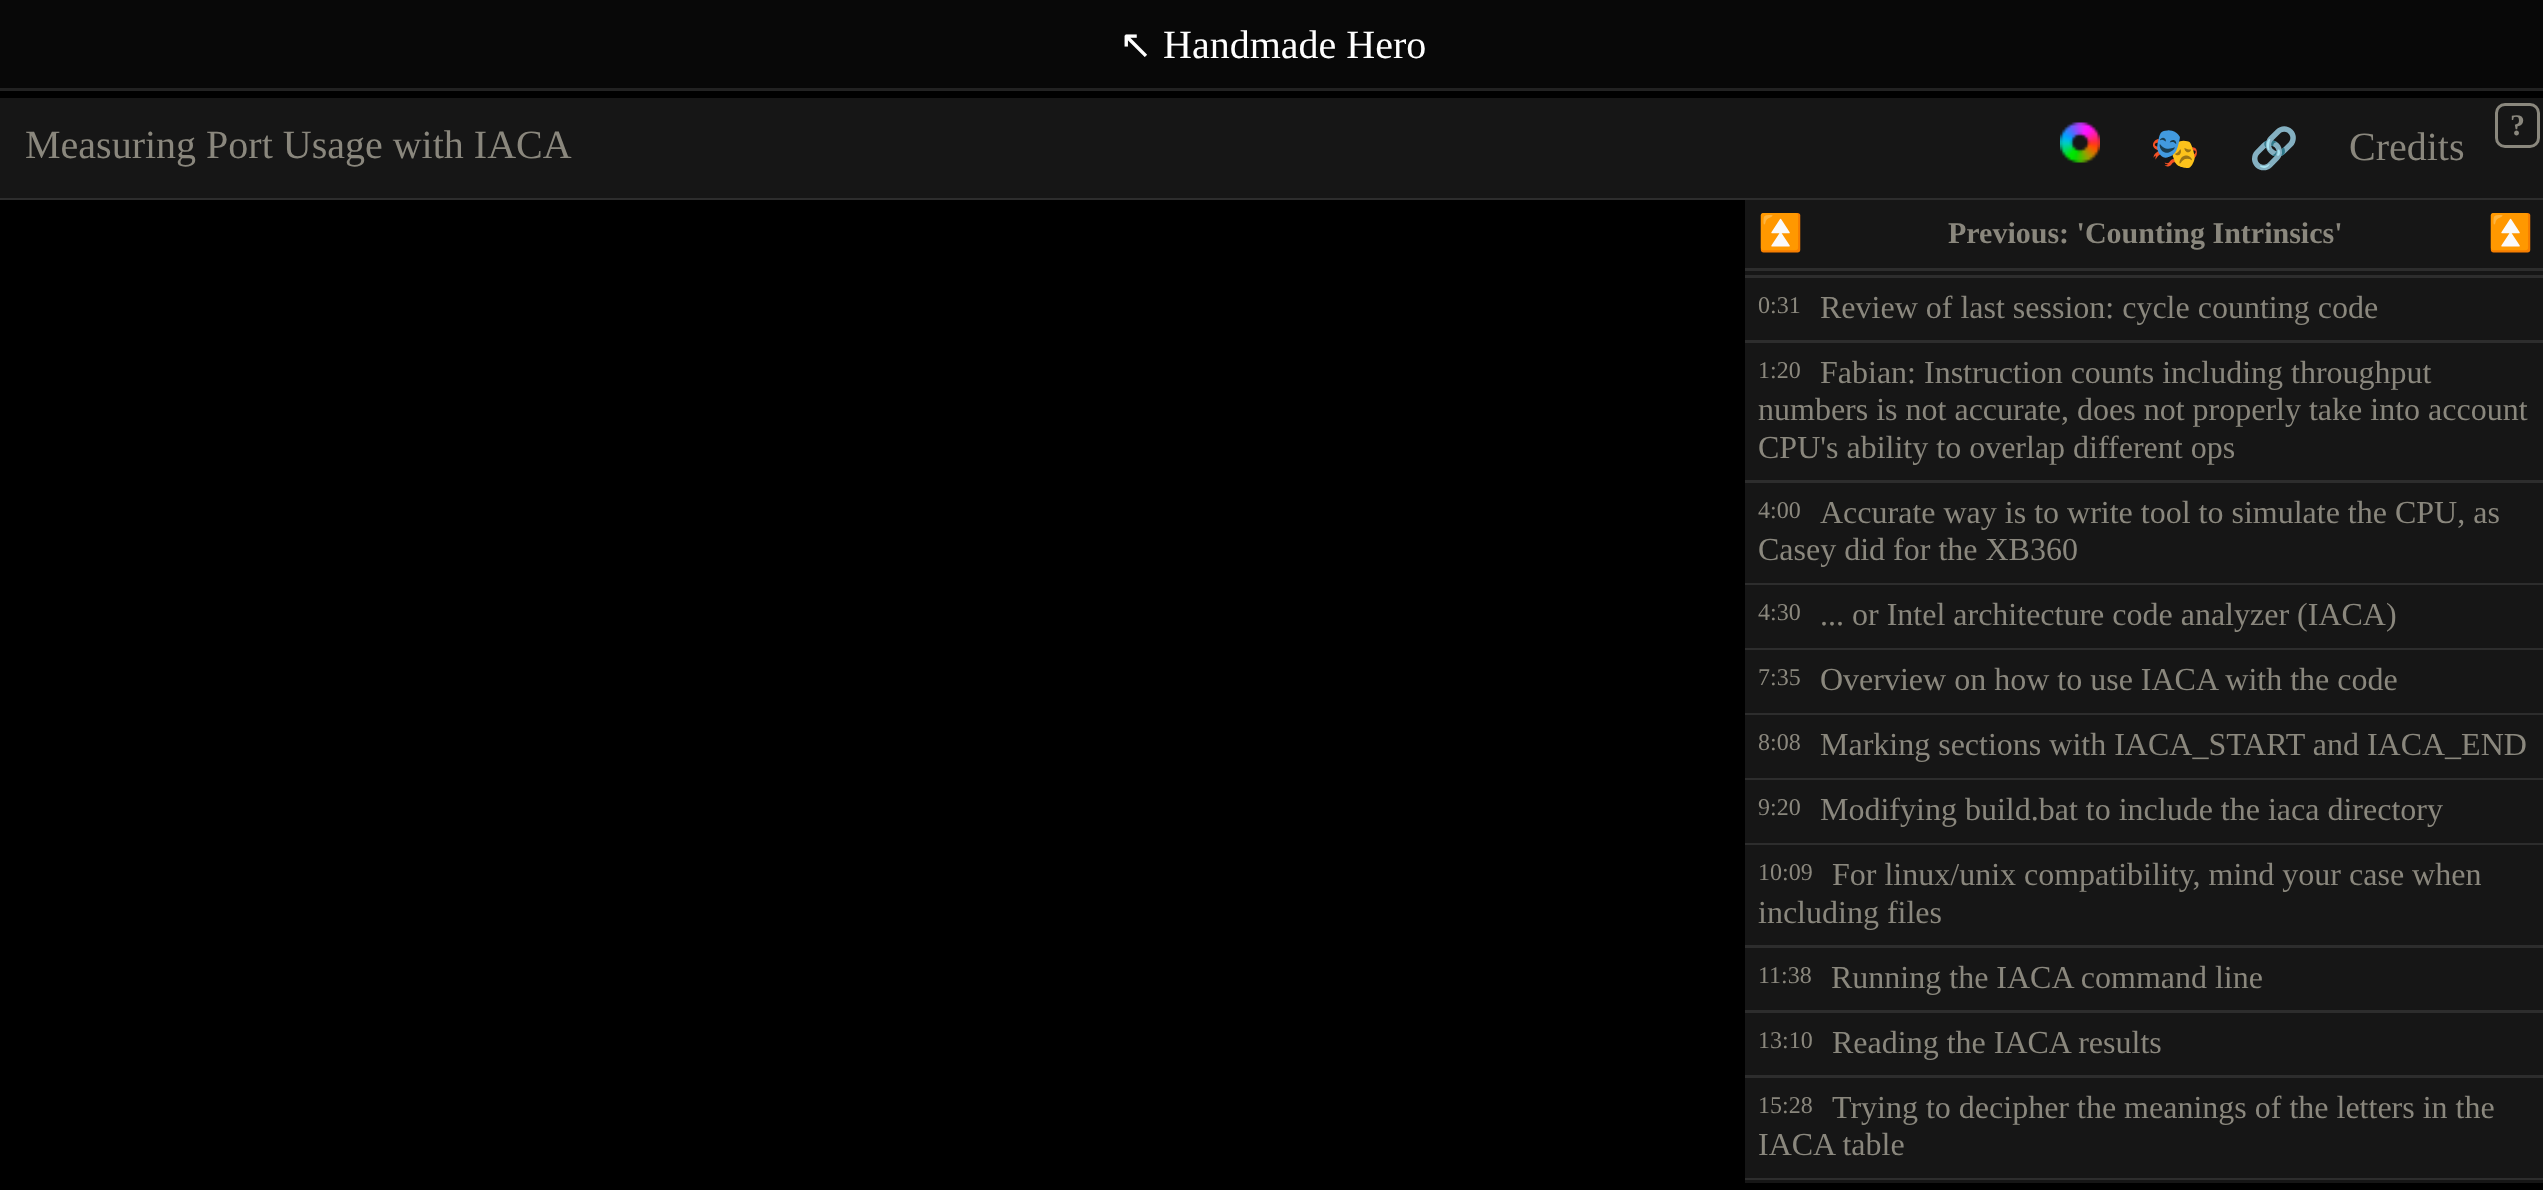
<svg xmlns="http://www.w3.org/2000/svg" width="2543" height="1190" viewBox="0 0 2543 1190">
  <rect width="100%" height="100%" fill="rgb(0,0,0)"/>
  <rect x="0" y="0" width="2543" height="88" fill="rgb(8,8,8)"/>
  <rect x="0" y="88" width="2543" height="3" fill="rgb(34,34,34)"/>
  <text x="1119" y="58" font-family="DejaVu Sans" font-size="40" fill="rgb(255,255,255)">↖</text>
  <text x="1163" y="58" font-family="Liberation Serif" font-size="40" fill="rgb(255,255,255)">Handmade Hero</text>
  <rect x="0" y="98" width="2543" height="102" fill="rgb(22,22,22)"/>
  <rect x="0" y="198" width="2543" height="2" fill="rgba(255,255,255,0.1)"/>
  <text x="25" y="158" font-family="Liberation Serif" font-size="40" fill="rgb(138,135,125)">Measuring Port Usage with IACA</text>
  <image x="2060" y="122" width="40" height="41" href="pic1.png"/>
  <text x="2150" y="162" font-family="Noto Color Emoji" font-size="40" fill="rgb(138,135,125)">🎭 🔗</text>
  <text x="2349" y="160" font-family="Liberation Serif" font-size="40" fill="rgb(138,135,125)">Credits</text>
  <rect x="2496.5" y="104.5" width="42" height="42" rx="8.5" fill="none" stroke="rgb(138,135,125)" stroke-width="3"/>
  <text x="2510" y="135" font-family="Liberation Serif" font-size="30" font-weight="bold" fill="rgb(138,135,125)">?</text>
  <rect x="1745" y="200" width="798" height="978" fill="rgb(22,22,22)"/>
  <rect x="1745" y="268" width="798" height="3" fill="rgb(45,45,45)"/>
  <rect x="1745" y="275" width="798" height="3" fill="rgb(45,45,45)"/>
  <text x="1758" y="245" font-family="Noto Color Emoji" font-size="36" fill="rgb(138,135,125)">⏫</text>
  <text x="1948" y="243" font-family="Liberation Serif" font-size="30" font-weight="bold" fill="rgb(138,135,125)">Previous: 'Counting Intrinsics'</text>
  <text x="2488" y="245" font-family="Noto Color Emoji" font-size="36" fill="rgb(138,135,125)">⏫</text>
  <rect x="1745" y="340" width="798" height="3" fill="rgb(45,45,45)"/>
  <text x="1758" y="313" font-family="Liberation Serif" font-size="24" fill="rgb(138,135,125)">0:31</text>
  <text x="1820" y="318" font-family="Liberation Serif" font-size="32" fill="rgb(138,135,125)">Review of last session: cycle counting code</text>
  <rect x="1745" y="480" width="798" height="3" fill="rgb(45,45,45)"/>
  <text x="1758" y="378" font-family="Liberation Serif" font-size="24" fill="rgb(138,135,125)">1:20</text>
  <g font-family="Liberation Serif" font-size="32" fill="rgb(138,135,125)">
    <text x="1820" y="383">Fabian: Instruction counts including throughput</text>
    <text>
      <tspan x="1758" y="420">numbers is not accurate, does not properly take into account</tspan>
      <tspan x="1758" y="458">CPU's ability to overlap different ops</tspan>
    </text>
  </g>
  <rect x="1745" y="583" width="798" height="2" fill="rgb(45,45,45)"/>
  <text x="1758" y="518" font-family="Liberation Serif" font-size="24" fill="rgb(138,135,125)">4:00</text>
  <g font-family="Liberation Serif" font-size="32" fill="rgb(138,135,125)">
    <text x="1820" y="523">Accurate way is to write tool to simulate the CPU, as</text>
    <text x="1758" y="560">Casey did for the XB360</text>
  </g>
  <rect x="1745" y="648" width="798" height="2" fill="rgb(45,45,45)"/>
  <text x="1758" y="620" font-family="Liberation Serif" font-size="24" fill="rgb(138,135,125)">4:30</text>
  <text x="1820" y="625" font-family="Liberation Serif" font-size="32" fill="rgb(138,135,125)">... or Intel architecture code analyzer (IACA)</text>
  <rect x="1745" y="713" width="798" height="2" fill="rgb(45,45,45)"/>
  <text x="1758" y="685" font-family="Liberation Serif" font-size="24" fill="rgb(138,135,125)">7:35</text>
  <text x="1820" y="690" font-family="Liberation Serif" font-size="32" fill="rgb(138,135,125)">Overview on how to use IACA with the code</text>
  <rect x="1745" y="778" width="798" height="2" fill="rgb(45,45,45)"/>
  <text x="1758" y="750" font-family="Liberation Serif" font-size="24" fill="rgb(138,135,125)">8:08</text>
  <text x="1820" y="755" font-family="Liberation Serif" font-size="32" fill="rgb(138,135,125)">Marking sections with IACA_START and IACA_END</text>
  <rect x="1745" y="843" width="798" height="2" fill="rgb(45,45,45)"/>
  <text x="1758" y="815" font-family="Liberation Serif" font-size="24" fill="rgb(138,135,125)">9:20</text>
  <text x="1820" y="820" font-family="Liberation Serif" font-size="32" fill="rgb(138,135,125)">Modifying build.bat to include the iaca directory</text>
  <rect x="1745" y="945" width="798" height="3" fill="rgb(45,45,45)"/>
  <text x="1758" y="880" font-family="Liberation Serif" font-size="24" fill="rgb(138,135,125)">10:09</text>
  <g font-family="Liberation Serif" font-size="32" fill="rgb(138,135,125)">
    <text x="1832" y="885">For linux/unix compatibility, mind your case when</text>
    <text x="1758" y="923">including files</text>
  </g>
  <rect x="1745" y="1010" width="798" height="3" fill="rgb(45,45,45)"/>
  <text x="1758" y="983" font-family="Liberation Serif" font-size="24" fill="rgb(138,135,125)">11:38</text>
  <text x="1831" y="988" font-family="Liberation Serif" font-size="32" fill="rgb(138,135,125)">Running the IACA command line</text>
  <rect x="1745" y="1075" width="798" height="3" fill="rgb(45,45,45)"/>
  <text x="1758" y="1048" font-family="Liberation Serif" font-size="24" fill="rgb(138,135,125)">13:10</text>
  <text x="1832" y="1053" font-family="Liberation Serif" font-size="32" fill="rgb(138,135,125)">Reading the IACA results</text>
  <rect x="1745" y="1178" width="798" height="2" fill="rgb(45,45,45)"/>
  <text x="1758" y="1113" font-family="Liberation Serif" font-size="24" fill="rgb(138,135,125)">15:28</text>
  <g font-family="Liberation Serif" font-size="32" fill="rgb(138,135,125)">
    <text x="1832" y="1118">Trying to decipher the meanings of the letters in the</text>
    <text x="1758" y="1155">IACA table</text>
  </g>
  <rect x="1745" y="1180" width="798" height="3" fill="rgb(22,22,22)"/>
</svg>
